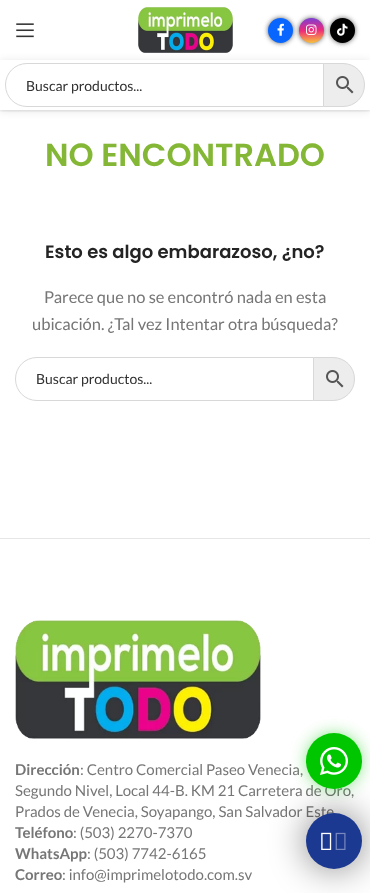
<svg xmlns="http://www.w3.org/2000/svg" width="370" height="893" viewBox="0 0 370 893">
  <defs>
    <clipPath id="clip1"><rect x="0" y="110" width="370" height="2"/></clipPath>
    <linearGradient id="g1" gradientUnits="userSpaceOnUse" x1="312" y1="44" x2="311" y2="17"><stop offset="0" stop-color="rgb(249,206,52)"/><stop offset="0.5" stop-color="rgb(238,42,123)"/><stop offset="1" stop-color="rgb(116,64,220)"/></linearGradient>
  </defs>
  <rect width="100%" height="100%" fill="rgb(255,255,255)"/>
  <g clip-path="url(#clip1)">
    <rect x="0" y="1" width="370" height="110" fill="rgba(0,0,0,0.1)" filter="blur(1.5px)"/>
  </g>
  <image x="16" y="23" width="18" height="15" href="pic1.png"/>
  <rect x="0" y="61" width="370" height="50" fill="rgba(0,0,0,0.1)" filter="blur(4px)"/>
  <image x="138" y="7" width="95" height="46" href="pic2.png"/>
  <rect x="268" y="18" width="25" height="25" rx="12.5" fill="rgb(91,91,91)" filter="blur(2.5px)"/>
  <circle cx="280.5" cy="30.5" r="12.5" fill="rgb(8,102,255)"/>
  <image x="277" y="23" width="7" height="13" href="pic3.png"/>
  <rect x="299" y="18" width="25" height="25" rx="12.5" fill="rgb(91,91,91)" filter="blur(2.5px)"/>
  <circle cx="311.5" cy="30.5" r="12.5" fill="url(#g1)"/>
  <image x="306" y="24" width="11" height="11" href="pic4.png"/>
  <rect x="330" y="18" width="25" height="25" rx="12.5" fill="rgb(91,91,91)" filter="blur(2.5px)"/>
  <circle cx="342.5" cy="30.5" r="12.5" fill="rgb(1,1,1)"/>
  <image x="337" y="23" width="11" height="13" href="pic5.png"/>
  <rect x="0" y="60" width="370" height="50" fill="rgb(255,255,255)"/>
  <path d="M323.5 63.5H343C355 63.5 364.5 73 364.5 85C364.5 97 355 106.5 343 106.5H323.5Z" fill="rgb(237,237,237)" stroke="rgb(216,216,216)"/>
  <path d="M27 63.5H323.5V106.5H27C15 106.5 5.5 97 5.5 85C5.5 73 15 63.5 27 63.5Z" fill="rgb(255,255,255)" stroke="rgb(216,216,216)"/>
  <text x="26" y="91" font-family="Lato" font-size="14" fill="rgb(49,49,49)">Buscar productos...</text>
  <image x="336" y="76" width="18" height="18" href="pic6.png"/>
  <text x="45" y="166" font-family="Poppins" font-size="32" font-weight="600" fill="rgb(131,183,53)">NO ENCONTRADO</text>
  <text x="45" y="258" font-family="Poppins" font-size="18" font-weight="600" fill="rgb(36,36,36)">Esto es algo embarazoso, ¿no?</text>
  <g font-family="Lato" font-size="16.5" fill="rgb(118,118,118)">
    <text x="44" y="303">Parece que no se encontró nada en esta</text>
    <text x="32" y="330">ubicación. ¿Tal vez Intentar otra búsqueda?</text>
  </g>
  <path d="M313.5 357.5H333C345 357.5 354.5 367 354.5 379C354.5 391 345 400.5 333 400.5H313.5Z" fill="rgb(237,237,237)" stroke="rgb(216,216,216)"/>
  <path d="M37 357.5H313.5V400.5H37C25 400.5 15.5 391 15.5 379C15.5 367 25 357.5 37 357.5Z" fill="rgb(255,255,255)" stroke="rgb(216,216,216)"/>
  <text x="36" y="384" font-family="Lato" font-size="14" fill="rgb(49,49,49)">Buscar productos...</text>
  <image x="326" y="370" width="18" height="18" href="pic6.png"/>
  <rect x="0" y="538" width="370" height="1" fill="rgb(230,230,230)"/>
  <image x="15" y="620" width="246" height="119" href="pic7.png"/>
  <text x="15" y="775" font-family="Lato" font-size="15" font-weight="bold" fill="rgb(118,118,118)">Dirección</text>
  <g font-family="Lato" font-size="15" fill="rgb(118,118,118)">
    <text x="80" y="775">: Centro Comercial Paseo Venecia,</text>
    <text>
      <tspan x="15" y="796">Segundo Nivel, Local 44-B. KM 21 Carretera de Oro,</tspan>
      <tspan x="15" y="817">Prados de Venecia, Soyapango, San Salvador Este</tspan>
    </text>
  </g>
  <text x="15" y="838" font-family="Lato" font-size="15" font-weight="bold" fill="rgb(118,118,118)">Teléfono</text>
  <text x="73" y="838" font-family="Lato" font-size="15" fill="rgb(118,118,118)">: (503) 2270-7370</text>
  <text x="15" y="859" font-family="Lato" font-size="15" font-weight="bold" fill="rgb(118,118,118)">WhatsApp</text>
  <text x="87" y="859" font-family="Lato" font-size="15" fill="rgb(118,118,118)">: (503) 7742-6165</text>
  <text x="15" y="880" font-family="Lato" font-size="15" font-weight="bold" fill="rgb(118,118,118)">Correo</text>
  <text x="62" y="880" font-family="Lato" font-size="15" fill="rgb(118,118,118)">: info@imprimelotodo.com.sv</text>
  <rect x="306" y="813" width="56" height="56" rx="28" fill="rgba(0,0,0,0.5)" filter="blur(18px)"/>
  <circle cx="334" cy="841" r="28" fill="rgb(28,57,145)"/>
  <rect x="312" y="739" width="44" height="44" rx="22" fill="rgb(0,198,0)" filter="blur(10px)"/>
  <circle cx="334" cy="761" r="28" fill="rgb(0,198,0)"/>
  <image x="320" y="747" width="28" height="28" href="pic8.png"/>
  <image x="321" y="832" width="11" height="18" href="pic9.png"/>
  <image x="321" y="832" width="25" height="18" href="pic10.png"/>
</svg>
